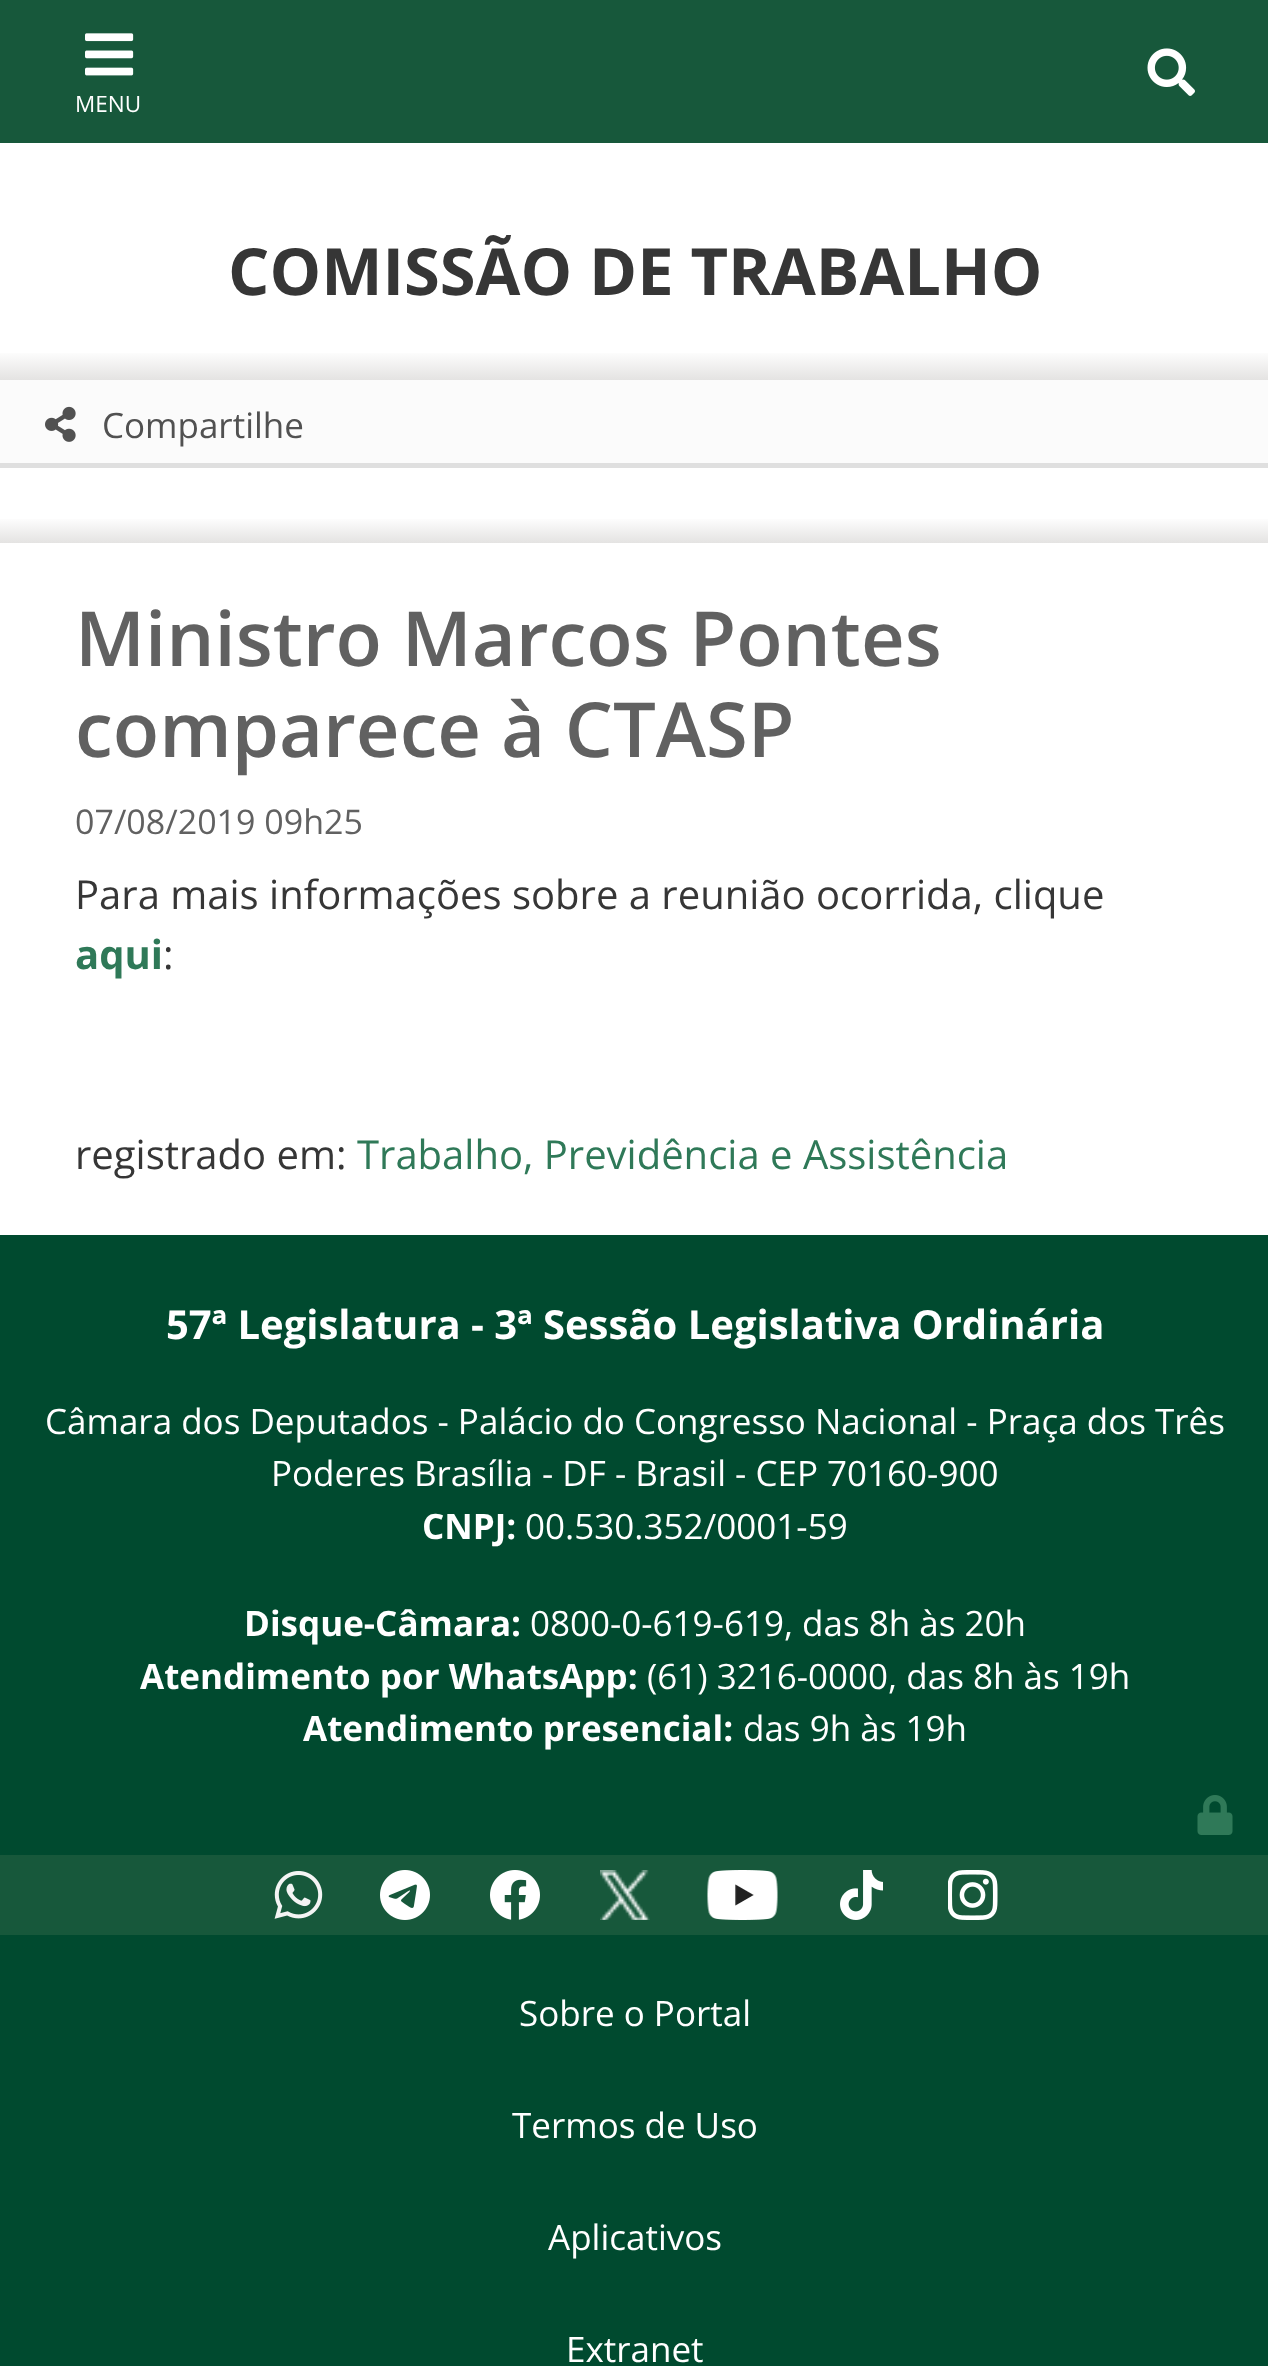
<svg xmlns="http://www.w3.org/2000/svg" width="1268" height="2366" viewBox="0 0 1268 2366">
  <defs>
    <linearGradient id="g1" gradientUnits="userSpaceOnUse" x1="635" y1="350" x2="635" y2="380"><stop offset="0" stop-color="rgb(255,255,255)"/><stop offset="1" stop-color="rgb(228,227,226)"/></linearGradient>
    <linearGradient id="g2" gradientUnits="userSpaceOnUse" x1="635" y1="517" x2="635" y2="543"><stop offset="0" stop-color="rgb(255,255,255)"/><stop offset="1" stop-color="rgb(228,227,226)"/></linearGradient>
  </defs>
  <rect width="100%" height="100%" fill="rgb(255,255,255)"/>
  <rect x="0" y="0" width="1268" height="143" fill="rgb(23,88,59)"/>
  <image x="1147" y="48" width="48" height="48" href="pic1.png"/>
  <image x="85" y="33" width="49" height="43" href="pic2.png"/>
  <text x="75" y="112" font-family="Open Sans" font-size="22.5" fill="rgb(255,255,255)">MENU</text>
  <text x="228" y="295" font-family="Open Sans" font-size="65" font-weight="bold" fill="rgb(54,54,54)">COMISSÃO DE TRABALHO</text>
  <rect x="0" y="353" width="1268" height="27" fill="url(#g1)"/>
  <rect x="0" y="380" width="1268" height="83" fill="rgb(251,251,251)"/>
  <rect x="0" y="463" width="1268" height="5" fill="rgb(223,223,223)"/>
  <image x="45" y="406" width="31" height="36" href="pic3.png"/>
  <text x="102" y="438" font-family="Open Sans" font-size="35" fill="rgb(81,81,81)">Compartilhe</text>
  <rect x="0" y="519" width="1268" height="24" fill="url(#g2)"/>
  <g font-family="Open Sans" font-size="76" font-weight="600" fill="rgb(97,97,97)">
    <text>
      <tspan x="75" y="666">Ministro Marcos Pontes</tspan>
      <tspan x="75" y="757">comparece à CTASP</tspan>
    </text>
  </g>
  <text x="75" y="834" font-family="Open Sans" font-size="34" fill="rgb(97,97,97)">07/08/2019 09h25</text>
  <text x="75" y="909" font-family="Open Sans" font-size="40" fill="rgb(54,54,54)">Para mais informações sobre a reunião ocorrida, clique</text>
  <text x="75" y="969" font-family="Open Sans" font-size="40" font-weight="bold" fill="rgb(47,121,88)">aqui</text>
  <g font-family="Open Sans" font-size="40" fill="rgb(54,54,54)">
    <text x="163" y="969">:</text>
    <text x="75" y="1169">registrado em:</text>
  </g>
  <text x="357" y="1169" font-family="Open Sans" font-size="40" fill="rgb(47,121,88)">Trabalho, Previdência e Assistência</text>
  <rect x="0" y="1235" width="1268" height="620" fill="rgb(0,74,47)"/>
  <text x="166" y="1339" font-family="Open Sans" font-size="40" font-weight="bold" fill="rgb(255,255,255)">57ª Legislatura - 3ª Sessão Legislativa Ordinária</text>
  <g font-family="Open Sans" font-size="35" fill="rgb(255,255,255)">
    <text x="45" y="1434">Câmara dos Deputados - Palácio do Congresso Nacional - Praça dos Três</text>
    <text x="271" y="1486">Poderes Brasília - DF - Brasil - CEP 70160-900</text>
  </g>
  <text x="422" y="1539" font-family="Open Sans" font-size="35" font-weight="bold" fill="rgb(255,255,255)">CNPJ:</text>
  <text x="525" y="1539" font-family="Open Sans" font-size="35" fill="rgb(255,255,255)">00.530.352/0001-59</text>
  <text x="244" y="1636" font-family="Open Sans" font-size="35" font-weight="bold" fill="rgb(255,255,255)">Disque-Câmara:</text>
  <text x="530" y="1636" font-family="Open Sans" font-size="35" fill="rgb(255,255,255)">0800-0-619-619, das 8h às 20h</text>
  <text x="140" y="1689" font-family="Open Sans" font-size="35" font-weight="bold" fill="rgb(255,255,255)">Atendimento por WhatsApp:</text>
  <text x="647" y="1689" font-family="Open Sans" font-size="35" fill="rgb(255,255,255)">(61) 3216-0000, das 8h às 19h</text>
  <text x="303" y="1741" font-family="Open Sans" font-size="35" font-weight="bold" fill="rgb(255,255,255)">Atendimento presencial:</text>
  <text x="743" y="1741" font-family="Open Sans" font-size="35" fill="rgb(255,255,255)">das 9h às 19h</text>
  <image x="1197" y="1795" width="36" height="40" href="pic4.png"/>
  <rect x="0" y="1855" width="1268" height="80" fill="rgb(23,88,59)"/>
  <image x="274" y="1871" width="49" height="48" href="pic5.png"/>
  <image x="380" y="1870" width="50" height="50" href="pic6.png"/>
  <image x="490" y="1870" width="50" height="50" href="pic7.png"/>
  <image x="600" y="1870" width="50" height="50" href="pic8.png"/>
  <image x="707" y="1870" width="71" height="50" href="pic9.png"/>
  <image x="840" y="1870" width="43" height="50" href="pic10.png"/>
  <image x="948" y="1870" width="50" height="50" href="pic11.png"/>
  <rect x="0" y="1935" width="1268" height="431" fill="rgb(0,74,47)"/>
  <g font-family="Open Sans" font-size="35" fill="rgb(255,255,255)">
    <text x="519" y="2026">Sobre o Portal</text>
    <text x="512" y="2138">Termos de Uso</text>
    <text x="548" y="2250">Aplicativos</text>
    <text x="566" y="2362">Extranet</text>
  </g>
</svg>
